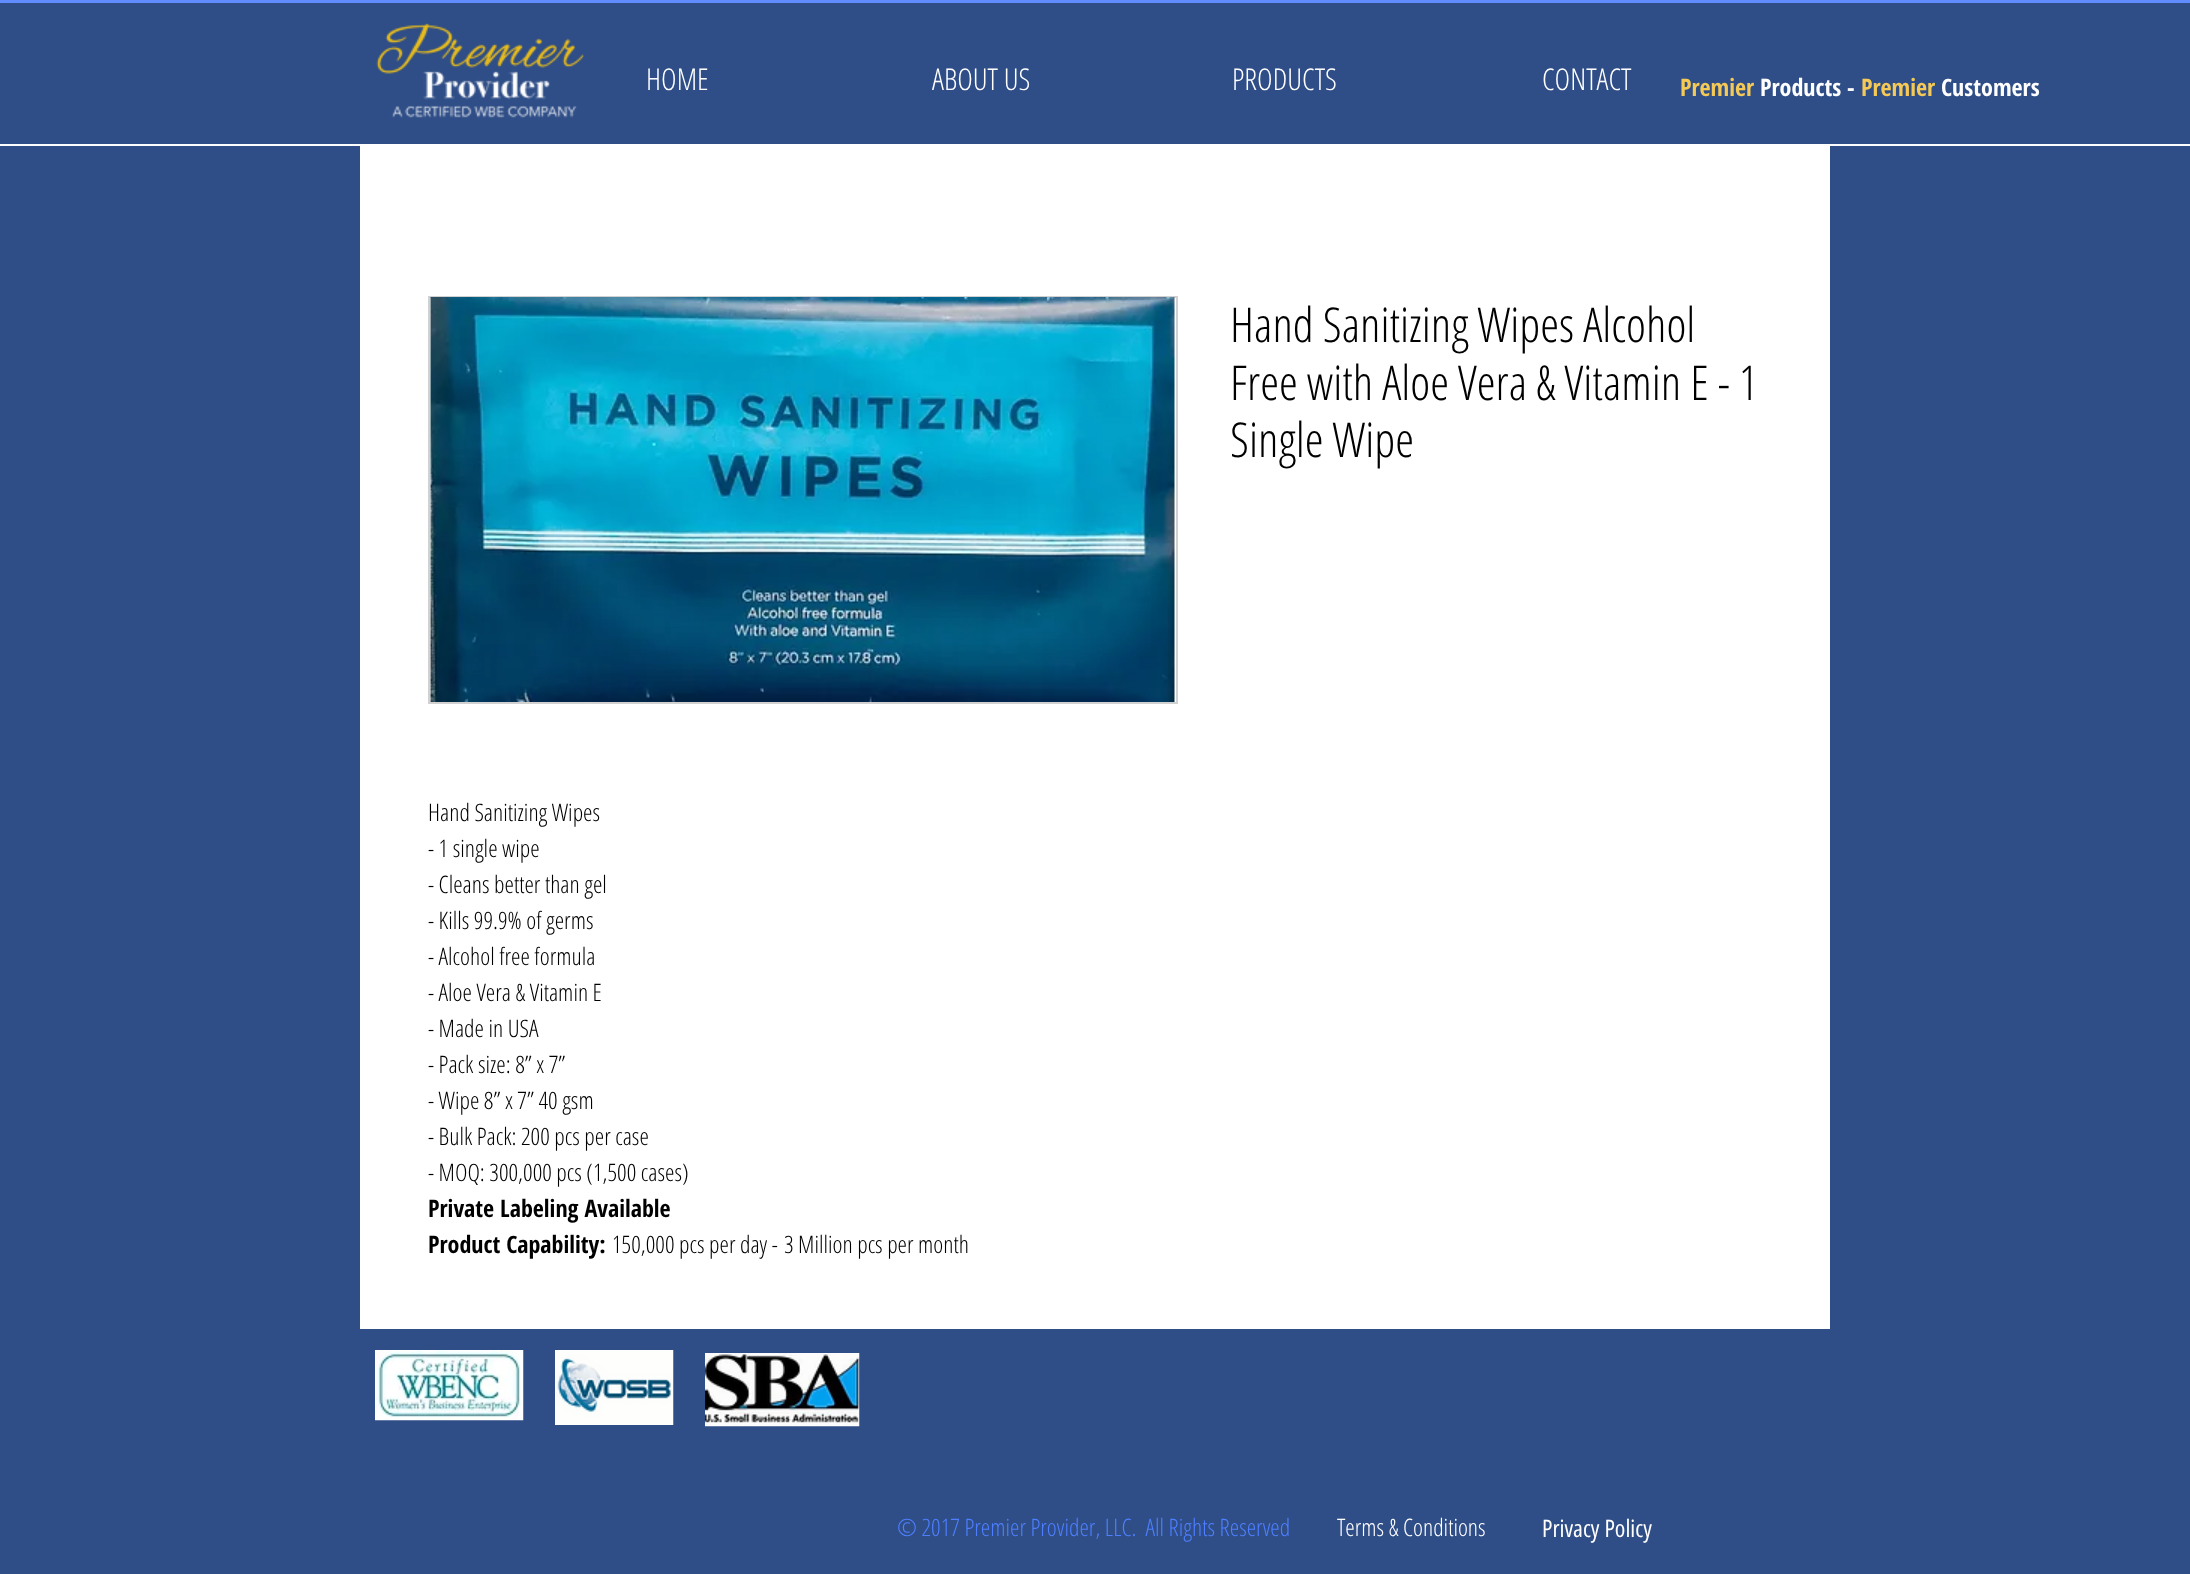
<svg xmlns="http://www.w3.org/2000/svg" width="2190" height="1574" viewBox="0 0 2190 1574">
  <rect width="100%" height="100%" fill="rgb(47,78,135)"/>
  <rect x="0" y="144" width="2190" height="2" fill="rgb(255,255,255)"/>
  <rect x="0" y="0" width="2190" height="3" fill="rgb(96,140,255)"/>
  <image x="376" y="23" width="208" height="95" href="pic1.png"/>
  <g font-family="Open Sans Condensed" font-size="30" font-weight="300" fill="rgb(255,255,255)">
    <text x="646" y="90">HOME</text>
    <text x="932" y="90">ABOUT US</text>
    <text x="1232" y="90">PRODUCTS</text>
    <text x="1542" y="90">CONTACT</text>
  </g>
  <text x="1680" y="96" font-family="Open Sans Condensed" font-size="24" font-weight="bold" fill="rgb(245,201,85)">Premier</text>
  <text x="1760" y="96" font-family="Open Sans Condensed" font-size="24" font-weight="bold" fill="rgb(255,255,255)">Products -</text>
  <text x="1861" y="96" font-family="Open Sans Condensed" font-size="24" font-weight="bold" fill="rgb(245,201,85)">Premier</text>
  <text x="1941" y="96" font-family="Open Sans Condensed" font-size="24" font-weight="bold" fill="rgb(255,255,255)">Customers</text>
  <rect x="360" y="146" width="1470" height="1183" fill="rgb(255,255,255)"/>
  <g font-family="Open Sans Condensed" font-size="48" font-weight="300" fill="rgb(0,0,0)">
    <text>
      <tspan x="1230" y="342">Hand Sanitizing Wipes Alcohol</tspan>
      <tspan x="1230" y="400">Free with Aloe Vera &amp; Vitamin E - 1</tspan>
      <tspan x="1230" y="457">Single Wipe</tspan>
    </text>
  </g>
  <rect x="429" y="297" width="748" height="406" fill="none" stroke="rgb(209,209,209)" stroke-width="2"/>
  <image x="430" y="297" width="745" height="405" href="pic2.png"/>
  <g font-family="Open Sans Condensed" font-size="24" font-weight="300" fill="rgb(0,0,0)">
    <text>
      <tspan x="428" y="821">Hand Sanitizing Wipes</tspan>
      <tspan x="428" y="857">- 1 single wipe</tspan>
      <tspan x="428" y="893">- Cleans better than gel</tspan>
      <tspan x="428" y="929">- Kills 99.9% of germs</tspan>
      <tspan x="428" y="965">- Alcohol free formula</tspan>
      <tspan x="428" y="1001">- Aloe Vera &amp; Vitamin E</tspan>
      <tspan x="428" y="1037">- Made in USA</tspan>
      <tspan x="428" y="1073">- Pack size: 8” x 7”</tspan>
      <tspan x="428" y="1109">- Wipe 8” x 7” 40 gsm</tspan>
      <tspan x="428" y="1145">- Bulk Pack: 200 pcs per case</tspan>
      <tspan x="428" y="1181">- MOQ: 300,000 pcs (1,500 cases)</tspan>
    </text>
  </g>
  <g font-family="Open Sans Condensed" font-size="24" font-weight="bold" fill="rgb(0,0,0)">
    <text>
      <tspan x="428" y="1217">Private Labeling Available</tspan>
      <tspan x="428" y="1253">Product Capability:</tspan>
    </text>
  </g>
  <g font-family="Open Sans Condensed" font-size="24" font-weight="300" fill="rgb(0,0,0)">
    <text x="612" y="1253">150,000 pcs per day -</text>
    <text x="784" y="1253">3 Million pcs per month</text>
  </g>
  <image x="375" y="1350" width="149" height="71" href="pic3.png"/>
  <image x="555" y="1350" width="119" height="75" href="pic4.png"/>
  <image x="705" y="1353" width="155" height="74" href="pic5.png"/>
  <text x="897" y="1536" font-family="Open Sans Condensed" font-size="24" font-weight="300" fill="rgb(78,127,255)" xml:space="preserve">© 2017 Premier Provider, LLC.  All Rights Reserved</text>
  <text x="1337" y="1536" font-family="Open Sans Condensed" font-size="24" font-weight="300" fill="rgb(255,255,255)">Terms &amp; Conditions</text>
  <text x="1542" y="1537" font-family="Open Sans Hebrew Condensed" font-size="24" fill="rgb(255,255,255)">Privacy Policy</text>
</svg>
